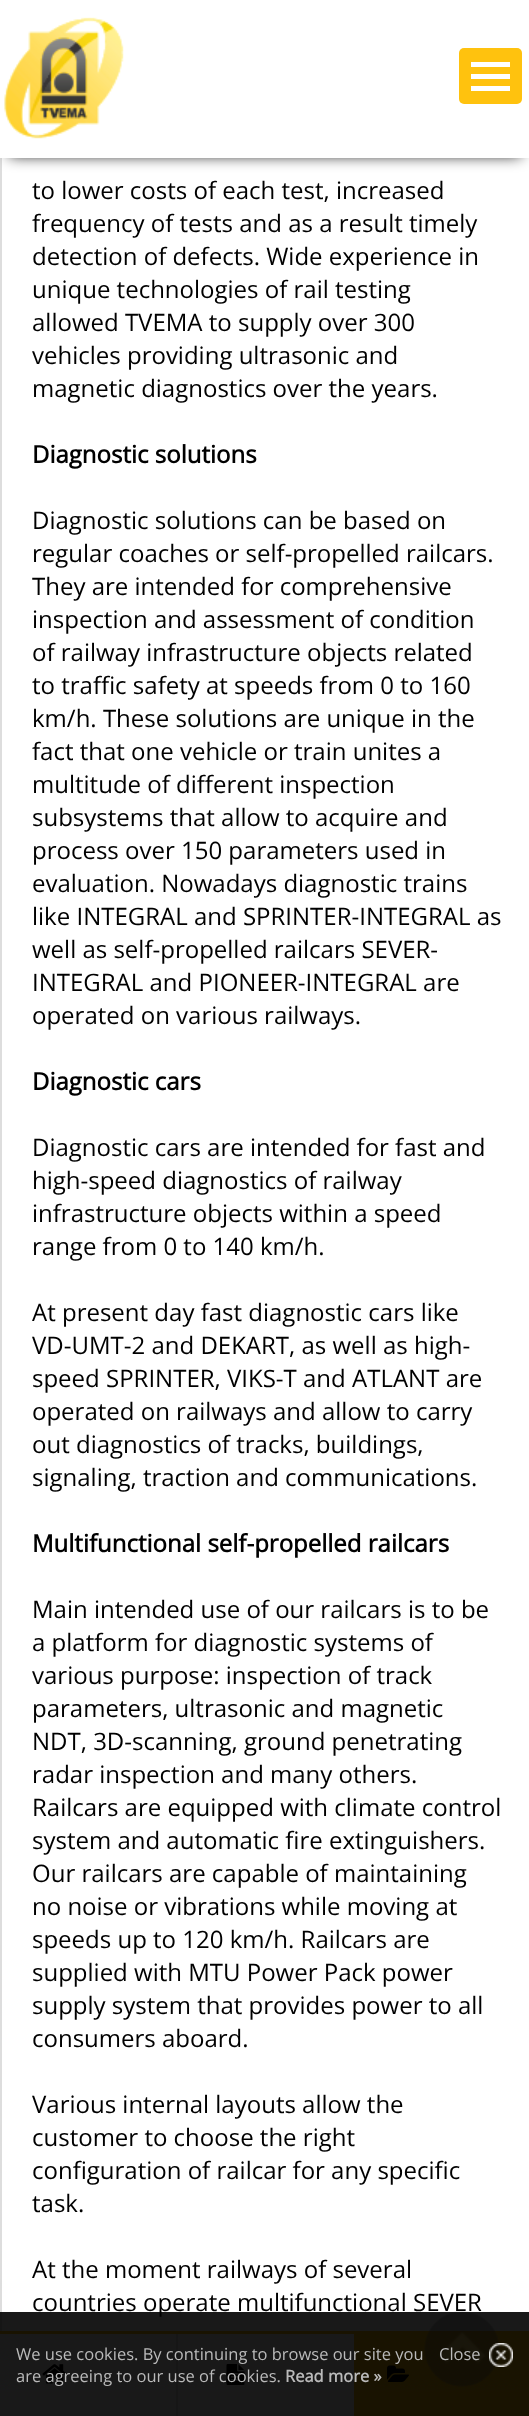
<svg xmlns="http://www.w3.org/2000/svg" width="529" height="2416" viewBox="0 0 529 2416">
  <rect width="100%" height="100%" fill="rgb(255,255,255)"/>
  <rect x="1" y="-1" width="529" height="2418" fill="none" stroke="rgb(221,221,221)" stroke-width="2"/>
  <rect x="9" y="-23" width="512" height="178" fill="rgb(0,0,0)" filter="blur(7.5px)"/>
  <rect x="0" y="0" width="529" height="158" fill="rgb(255,255,255)"/>
  <image x="4" y="17" width="120" height="122" href="pic1.png"/>
  <rect x="459" y="48" width="63" height="56" rx="5" fill="rgb(255,194,14)"/>
  <rect x="471" y="62" width="39" height="5" fill="rgb(255,255,255)"/>
  <rect x="471" y="74" width="39" height="5" fill="rgb(255,255,255)"/>
  <rect x="471" y="86" width="39" height="5" fill="rgb(255,255,255)"/>
  <g font-family="Open Sans" font-size="24" fill="rgb(0,0,0)">
    <text>
      <tspan x="32" y="199">to lower costs of each test, increased</tspan>
      <tspan x="32" y="232">frequency of tests and as a result timely</tspan>
      <tspan x="32" y="265">detection of defects. Wide experience in</tspan>
      <tspan x="32" y="298">unique technologies of rail testing</tspan>
      <tspan x="32" y="331">allowed TVEMA to supply over 300</tspan>
      <tspan x="32" y="364">vehicles providing ultrasonic and</tspan>
      <tspan x="32" y="397">magnetic diagnostics over the years.</tspan>
    </text>
  </g>
  <text x="32" y="463" font-family="Open Sans" font-size="24" font-weight="bold" fill="rgb(0,0,0)">Diagnostic solutions</text>
  <g font-family="Open Sans" font-size="24" fill="rgb(0,0,0)">
    <text>
      <tspan x="32" y="529">Diagnostic solutions can be based on</tspan>
      <tspan x="32" y="562">regular coaches or self-propelled railcars.</tspan>
      <tspan x="32" y="595">They are intended for comprehensive</tspan>
      <tspan x="32" y="628">inspection and assessment of condition</tspan>
      <tspan x="32" y="661">of railway infrastructure objects related</tspan>
      <tspan x="32" y="694">to traffic safety at speeds from 0 to 160</tspan>
      <tspan x="32" y="727">km/h. These solutions are unique in the</tspan>
      <tspan x="32" y="760">fact that one vehicle or train unites a</tspan>
      <tspan x="32" y="793">multitude of different inspection</tspan>
      <tspan x="32" y="826">subsystems that allow to acquire and</tspan>
      <tspan x="32" y="859">process over 150 parameters used in</tspan>
      <tspan x="32" y="892">evaluation. Nowadays diagnostic trains</tspan>
      <tspan x="32" y="925">like INTEGRAL and SPRINTER-INTEGRAL as</tspan>
      <tspan x="32" y="958">well as self-propelled railcars SEVER-</tspan>
      <tspan x="32" y="991">INTEGRAL and PIONEER-INTEGRAL are</tspan>
      <tspan x="32" y="1024">operated on various railways.</tspan>
    </text>
  </g>
  <text x="32" y="1090" font-family="Open Sans" font-size="24" font-weight="bold" fill="rgb(0,0,0)">Diagnostic cars</text>
  <g font-family="Open Sans" font-size="24" fill="rgb(0,0,0)">
    <text>
      <tspan x="32" y="1156">Diagnostic cars are intended for fast and</tspan>
      <tspan x="32" y="1189">high-speed diagnostics of railway</tspan>
      <tspan x="32" y="1222">infrastructure objects within a speed</tspan>
      <tspan x="32" y="1255">range from 0 to 140 km/h.</tspan>
    </text>
    <text>
      <tspan x="32" y="1321">At present day fast diagnostic cars like</tspan>
      <tspan x="32" y="1354">VD-UMT-2 and DEKART, as well as high-</tspan>
      <tspan x="32" y="1387">speed SPRINTER, VIKS-T and ATLANT are</tspan>
      <tspan x="32" y="1420">operated on railways and allow to carry</tspan>
      <tspan x="32" y="1453">out diagnostics of tracks, buildings,</tspan>
      <tspan x="32" y="1486">signaling, traction and communications.</tspan>
    </text>
  </g>
  <text x="32" y="1552" font-family="Open Sans" font-size="24" font-weight="bold" fill="rgb(0,0,0)">Multifunctional self-propelled railcars</text>
  <g font-family="Open Sans" font-size="24" fill="rgb(0,0,0)">
    <text>
      <tspan x="32" y="1618">Main intended use of our railcars is to be</tspan>
      <tspan x="32" y="1651">a platform for diagnostic systems of</tspan>
      <tspan x="32" y="1684">various purpose: inspection of track</tspan>
      <tspan x="32" y="1717">parameters, ultrasonic and magnetic</tspan>
      <tspan x="32" y="1750">NDT, 3D-scanning, ground penetrating</tspan>
      <tspan x="32" y="1783">radar inspection and many others.</tspan>
      <tspan x="32" y="1816">Railcars are equipped with climate control</tspan>
      <tspan x="32" y="1849">system and automatic fire extinguishers.</tspan>
      <tspan x="32" y="1882">Our railcars are capable of maintaining</tspan>
      <tspan x="32" y="1915">no noise or vibrations while moving at</tspan>
      <tspan x="32" y="1948">speeds up to 120 km/h. Railcars are</tspan>
      <tspan x="32" y="1981">supplied with MTU Power Pack power</tspan>
      <tspan x="32" y="2014">supply system that provides power to all</tspan>
      <tspan x="32" y="2047">consumers aboard.</tspan>
    </text>
    <text>
      <tspan x="32" y="2113">Various internal layouts allow the</tspan>
      <tspan x="32" y="2146">customer to choose the right</tspan>
      <tspan x="32" y="2179">configuration of railcar for any specific</tspan>
      <tspan x="32" y="2212">task.</tspan>
    </text>
    <text>
      <tspan x="32" y="2278">At the moment railways of several</tspan>
      <tspan x="32" y="2311">countries operate multifunctional SEVER</tspan>
    </text>
  </g>
  <rect x="0" y="2331" width="529" height="3" fill="rgb(255,194,14)"/>
  <rect x="354" y="2334" width="175" height="82" fill="rgb(255,194,14)"/>
  <image x="424" y="2311" width="76" height="76" href="pic2.png"/>
  <rect x="0" y="2334" width="2" height="82" fill="rgb(255,255,255)"/>
  <rect x="176" y="2334" width="2" height="82" fill="rgb(221,221,221)"/>
  <image x="42" y="2364" width="25" height="20" href="pic3.png"/>
  <image x="226" y="2364" width="19" height="21" href="pic4.png"/>
  <image x="387" y="2365" width="22" height="17" href="pic5.png"/>
  <rect x="0" y="2312" width="529" height="104" fill="rgba(0,0,0,0.9)"/>
  <g font-family="Open Sans" font-size="16.5" fill="rgb(186,186,186)">
    <text x="16" y="2360">We use cookies. By continuing to browse our site you</text>
    <text x="439" y="2360">Close</text>
  </g>
  <image x="489" y="2343" width="24" height="24" href="pic6.png"/>
  <text x="16" y="2382" font-family="Open Sans" font-size="16.5" fill="rgb(186,186,186)">are agreeing to our use of cookies.</text>
  <text x="285" y="2382" font-family="Open Sans" font-size="16.5" font-weight="bold" fill="rgb(186,186,186)">Read more »</text>
</svg>
